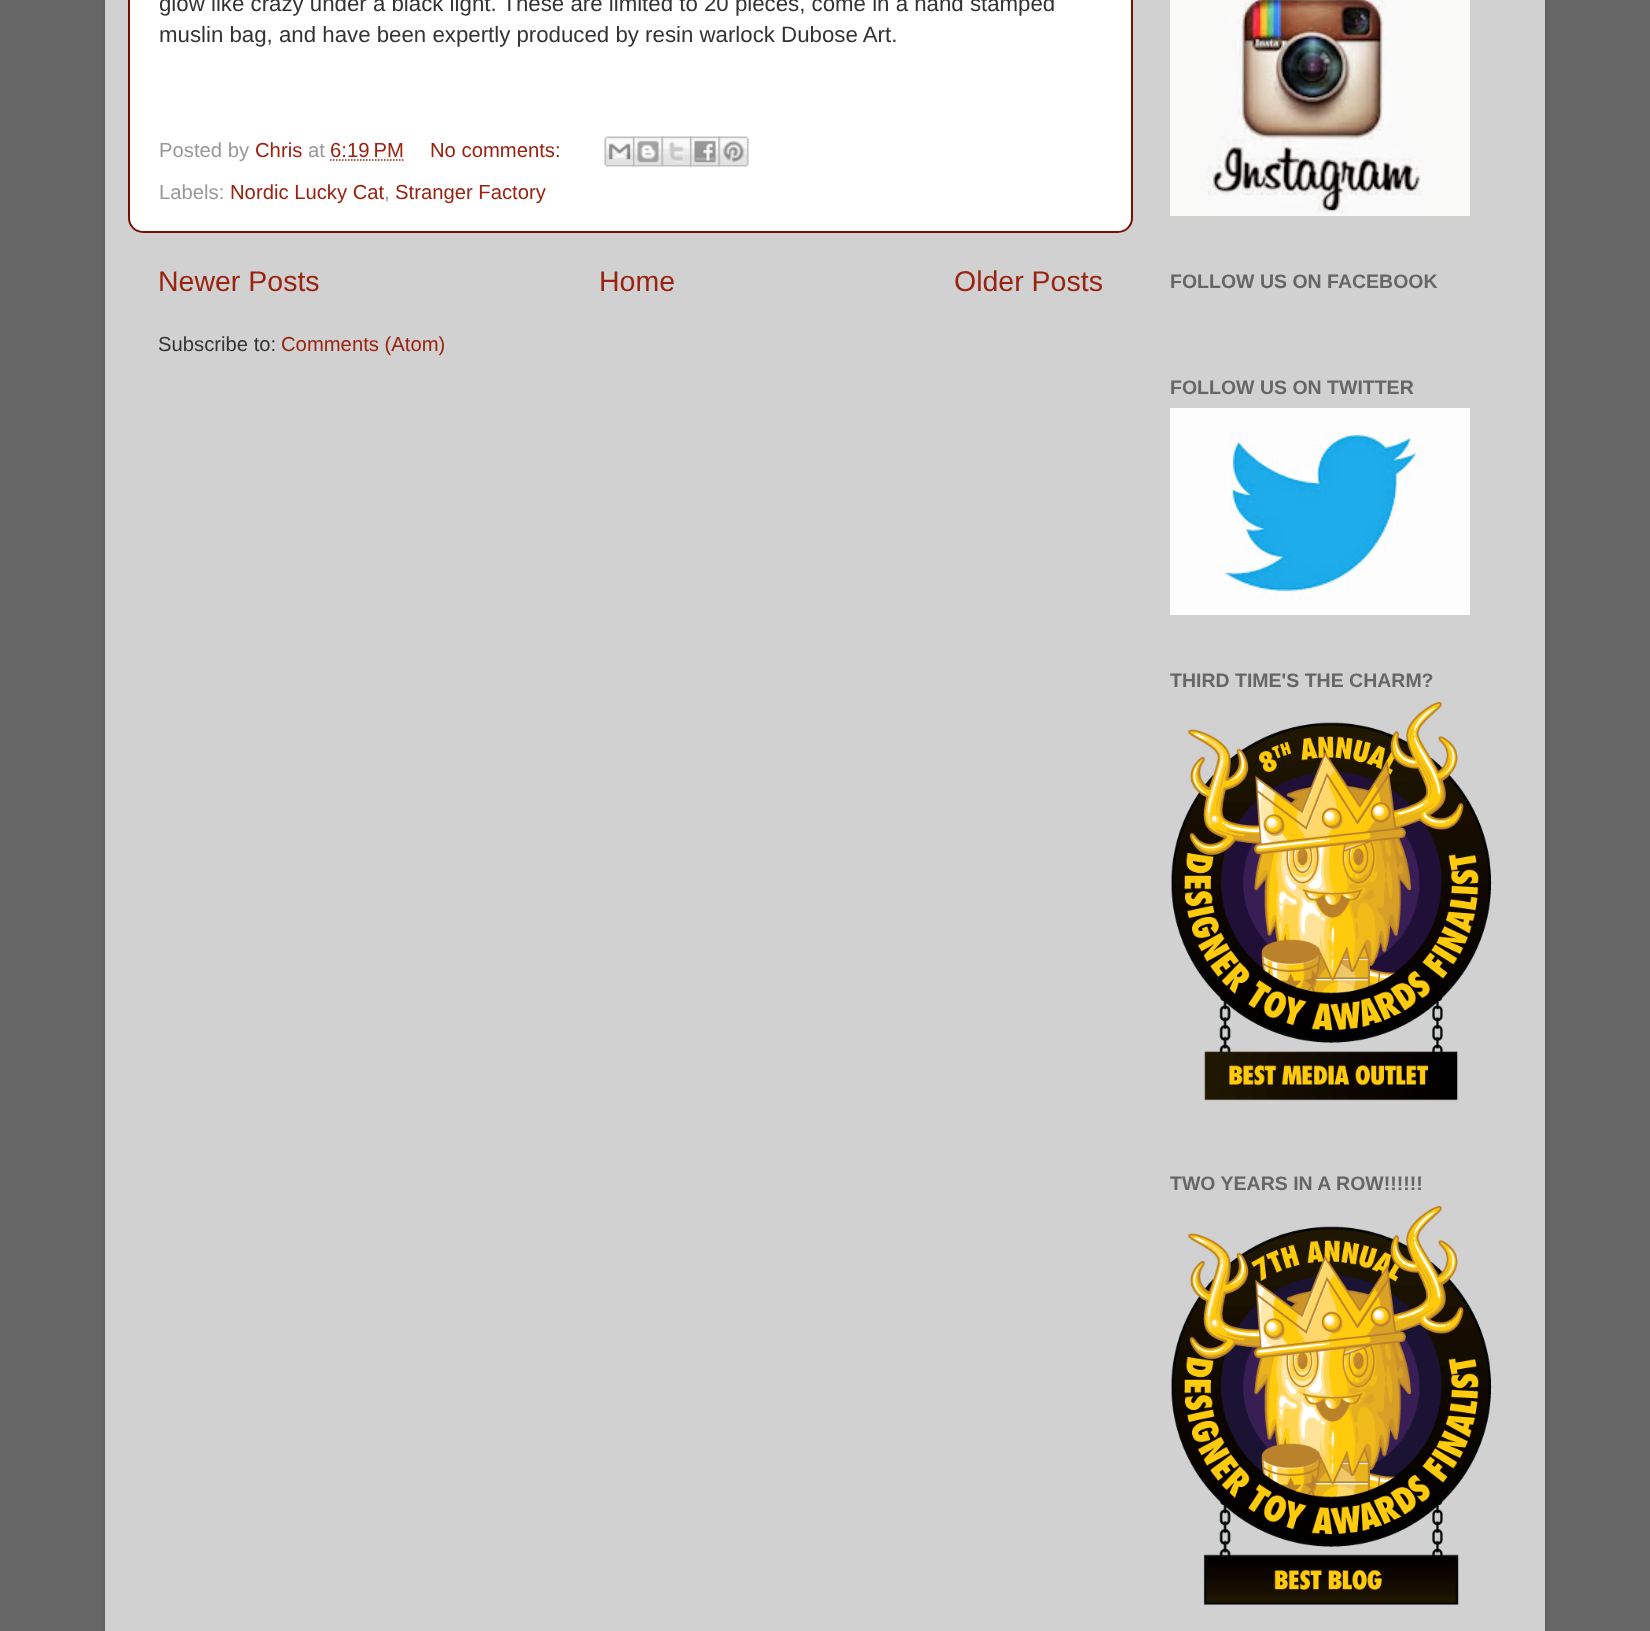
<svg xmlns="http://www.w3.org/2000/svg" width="1650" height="1631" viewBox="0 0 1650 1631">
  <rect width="100%" height="100%" fill="rgb(102,102,102)"/>
  <rect x="105" y="-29" width="1440" height="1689" rx="23" fill="rgba(0,0,0,0.15)" filter="blur(2px)"/>
  <rect x="105" y="0" width="1440" height="1631" fill="rgb(209,209,209)"/>
  <rect x="129" y="-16" width="1003" height="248" rx="14" fill="rgb(255,255,255)" stroke="rgb(119,16,0)" stroke-width="2"/>
  <g font-family="Liberation Sans" font-size="22.25" fill="rgb(51,51,51)">
    <text>
      <tspan x="159" y="11">glow like crazy under a black light. These are limited to 20 pieces, come in a hand stamped</tspan>
      <tspan x="159" y="42">muslin bag, and have been expertly produced by resin warlock Dubose Art.</tspan>
    </text>
  </g>
  <text x="159" y="157" font-family="Liberation Sans" font-size="20.25" fill="rgb(153,153,153)">Posted by</text>
  <text x="255" y="157" font-family="Liberation Sans" font-size="20.25" fill="rgb(153,34,17)">Chris</text>
  <text x="308" y="157" font-family="Liberation Sans" font-size="20.25" fill="rgb(153,153,153)">at</text>
  <text x="330" y="157" font-family="Liberation Sans" font-size="20.25" fill="rgb(153,34,17)">6:19 PM</text>
  <path d="M330 160H404" fill="none" stroke="rgb(153,34,17)" stroke-width="1.5" stroke-dasharray="1.5 1.5"/>
  <text x="430" y="157" font-family="Liberation Sans" font-size="20.25" fill="rgb(153,34,17)">No comments:</text>
  <image x="604" y="136" width="31" height="31" href="pic1.png"/>
  <image x="633" y="136" width="30" height="31" href="pic2.png"/>
  <image x="661" y="136" width="31" height="31" href="pic3.png"/>
  <image x="690" y="136" width="30" height="31" href="pic4.png"/>
  <image x="718" y="136" width="31" height="31" href="pic5.png"/>
  <text x="159" y="199" font-family="Liberation Sans" font-size="20.25" fill="rgb(153,153,153)">Labels:</text>
  <text x="230" y="199" font-family="Liberation Sans" font-size="20.25" fill="rgb(153,34,17)">Nordic Lucky Cat</text>
  <text x="384" y="199" font-family="Liberation Sans" font-size="20.25" fill="rgb(153,153,153)">,</text>
  <text x="395" y="199" font-family="Liberation Sans" font-size="20.25" fill="rgb(153,34,17)">Stranger Factory</text>
  <g font-family="Liberation Sans" font-size="28.5" fill="rgb(153,34,17)">
    <text x="158" y="291">Newer Posts</text>
    <text x="599" y="291">Home</text>
    <text x="954" y="291">Older Posts</text>
  </g>
  <text x="158" y="351" font-family="Liberation Sans" font-size="20.25" fill="rgb(51,51,51)">Subscribe to:</text>
  <text x="281" y="351" font-family="Liberation Sans" font-size="20.25" fill="rgb(153,34,17)">Comments (Atom)</text>
  <image x="1170" y="0" width="300" height="216" href="pic6.png"/>
  <g font-family="Liberation Sans" font-size="19.5" font-weight="bold" fill="rgb(102,102,102)">
    <text x="1170" y="288">FOLLOW US ON FACEBOOK</text>
    <text x="1170" y="394">FOLLOW US ON TWITTER</text>
  </g>
  <image x="1170" y="408" width="300" height="207" href="pic7.png"/>
  <text x="1170" y="687" font-family="Liberation Sans" font-size="19.5" font-weight="bold" fill="rgb(102,102,102)">THIRD TIME'S THE CHARM?</text>
  <image x="1171" y="702" width="321" height="399" href="pic8.png"/>
  <text x="1170" y="1190" font-family="Liberation Sans" font-size="19.5" font-weight="bold" fill="rgb(102,102,102)">TWO YEARS IN A ROW!!!!!!</text>
  <image x="1171" y="1206" width="321" height="399" href="pic9.png"/>
</svg>
